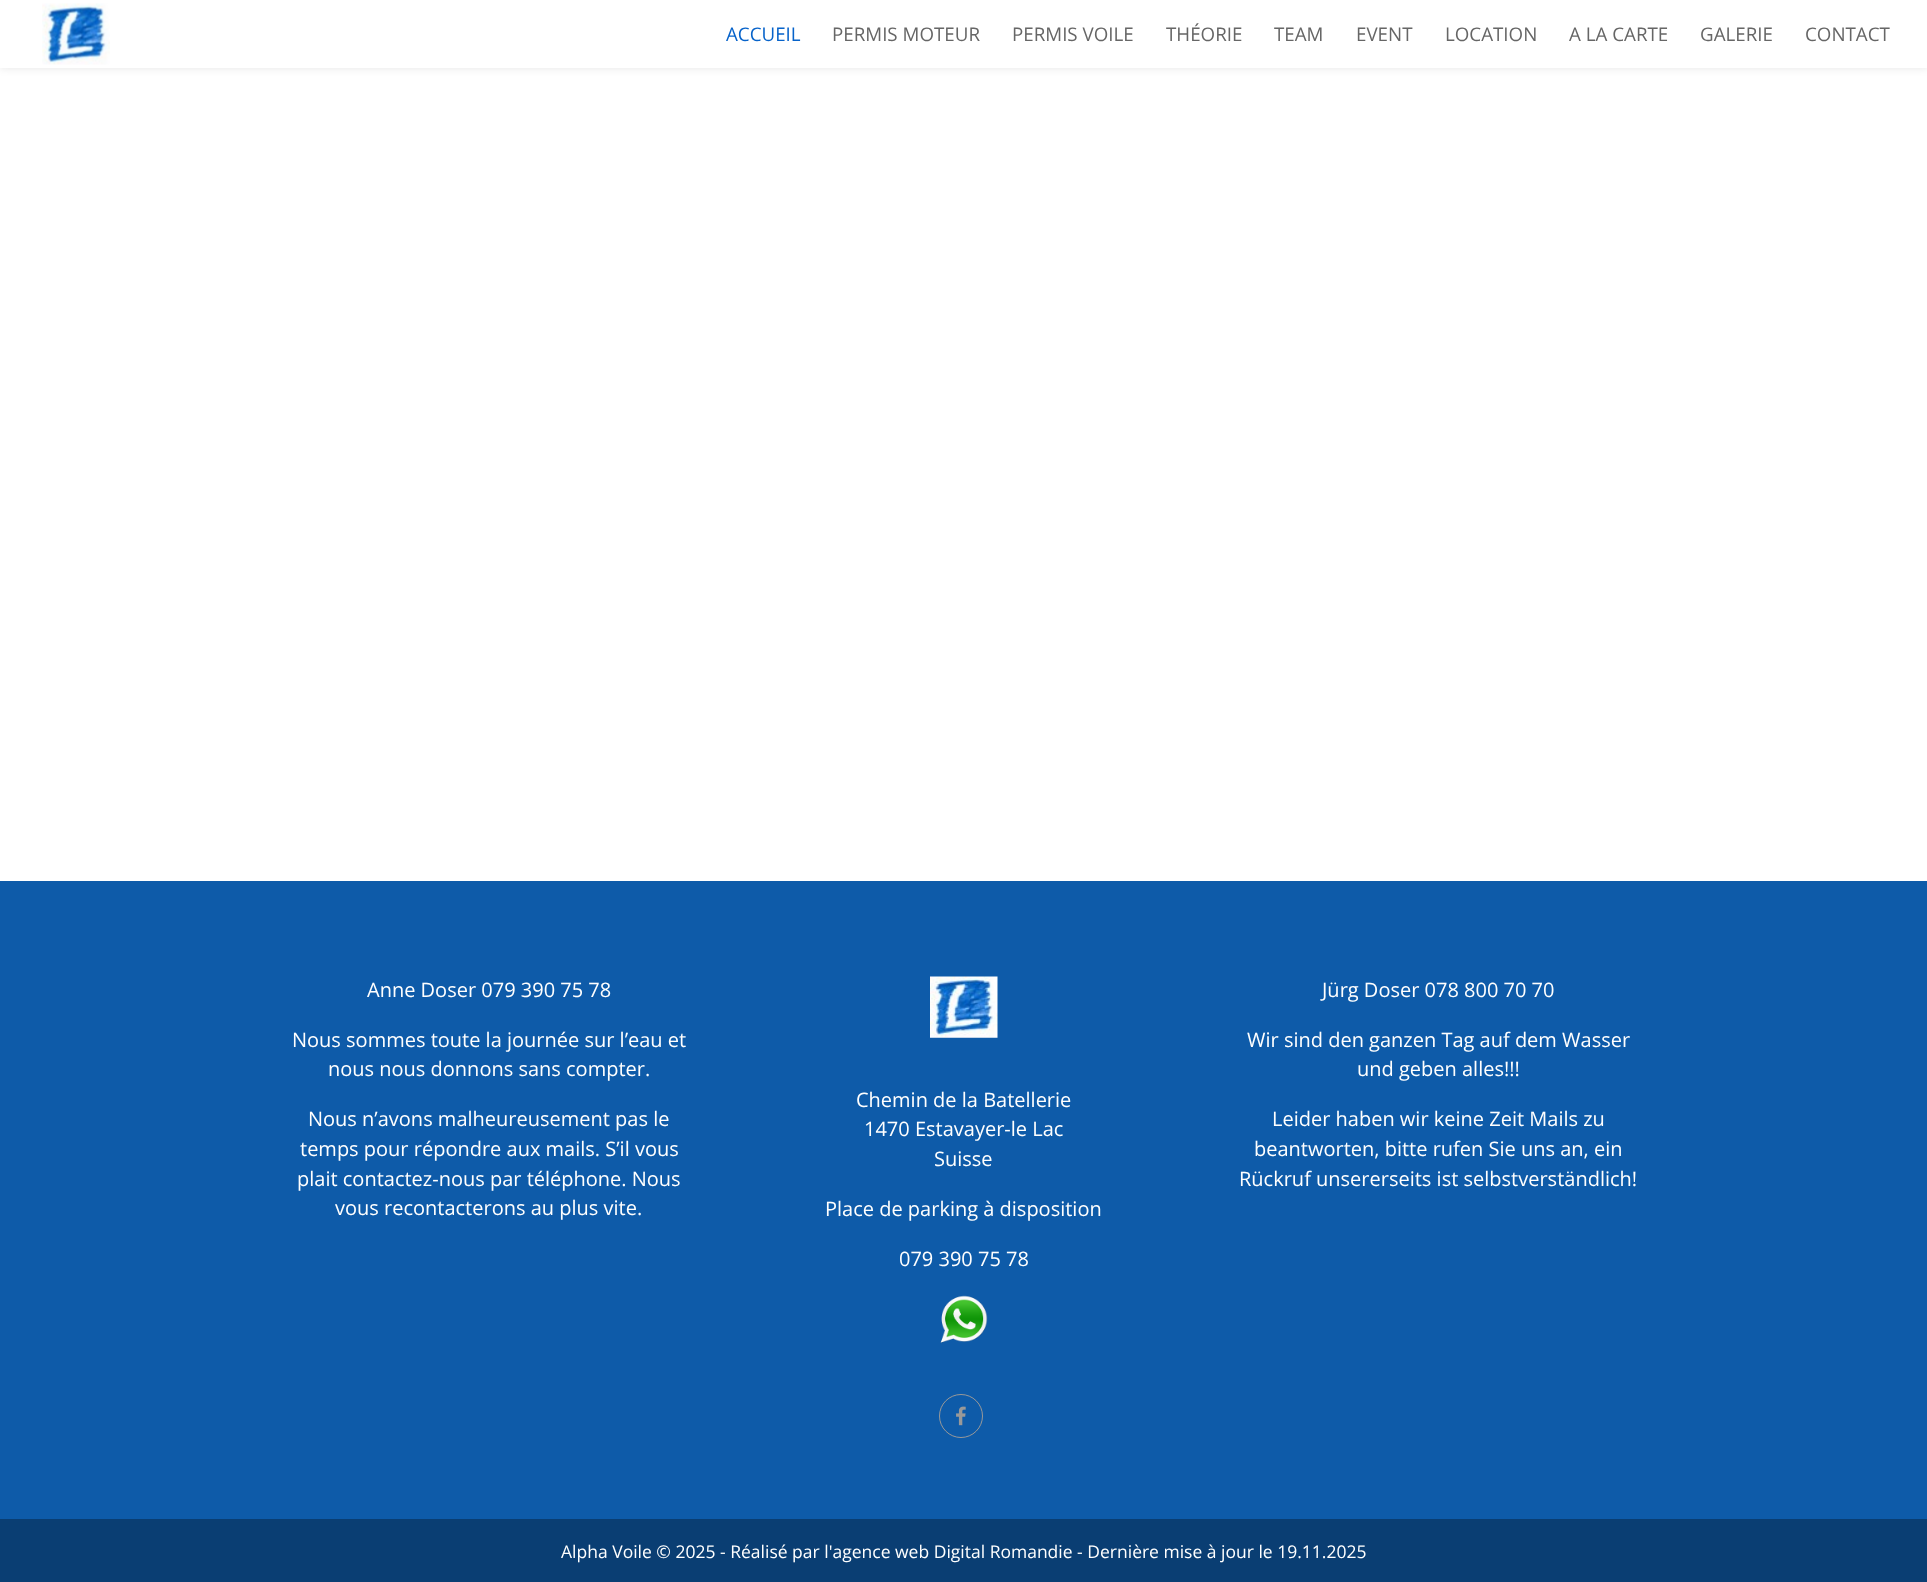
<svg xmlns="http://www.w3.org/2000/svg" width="1927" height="1582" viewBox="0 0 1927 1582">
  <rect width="100%" height="100%" fill="rgb(255,255,255)"/>
  <rect x="0" y="0" width="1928" height="68" fill="rgba(0,0,0,0.1)" filter="blur(4.5px)"/>
  <rect x="0" y="0" width="1927" height="68" fill="rgb(255,255,255)"/>
  <image x="42" y="3" width="68" height="62" href="pic1.png"/>
  <text x="726" y="41" font-family="Open Sans" font-size="18.75" fill="rgb(7,99,202)">ACCUEIL</text>
  <g font-family="Open Sans" font-size="18.75" fill="rgb(102,102,102)">
    <text x="832" y="41">PERMIS MOTEUR</text>
    <text x="1012" y="41">PERMIS VOILE</text>
    <text x="1166" y="41">THÉORIE</text>
    <text x="1274" y="41">TEAM</text>
    <text x="1356" y="41">EVENT</text>
    <text x="1445" y="41">LOCATION</text>
    <text x="1569" y="41">A LA CARTE</text>
    <text x="1700" y="41">GALERIE</text>
    <text x="1805" y="41">CONTACT</text>
  </g>
  <rect x="0" y="881" width="1927" height="638" fill="rgb(14,91,169)"/>
  <g font-family="Open Sans" font-size="20" fill="rgb(255,255,255)">
    <text x="367" y="997">Anne Doser 079 390 75 78</text>
    <text x="292" y="1047">Nous sommes toute la journée sur l’eau et</text>
    <text x="328" y="1076">nous nous donnons sans compter.</text>
    <text x="308" y="1126">Nous n’avons malheureusement pas le</text>
    <text x="300" y="1156">temps pour répondre aux mails. S’il vous</text>
    <text x="297" y="1186">plait contactez-nous par téléphone. Nous</text>
    <text x="335" y="1215">vous recontacterons au plus vite.</text>
  </g>
  <image x="930" y="976" width="68" height="62" href="pic2.png"/>
  <g font-family="Open Sans" font-size="20" fill="rgb(255,255,255)">
    <text x="856" y="1107">Chemin de la Batellerie</text>
    <text x="864" y="1136">1470 Estavayer-le Lac</text>
    <text x="934" y="1166">Suisse</text>
    <text x="825" y="1216">Place de parking à disposition</text>
    <text x="899" y="1266">079 390 75 78</text>
  </g>
  <image x="940" y="1295" width="48" height="48" href="pic3.png"/>
  <circle cx="961" cy="1416" r="21.5" fill="none" stroke="rgb(153,153,153)"/>
  <image x="956" y="1406" width="10" height="20" href="pic4.png"/>
  <g font-family="Open Sans" font-size="20" fill="rgb(255,255,255)">
    <text x="1322" y="997">Jürg Doser 078 800 70 70</text>
    <text x="1247" y="1047">Wir sind den ganzen Tag auf dem Wasser</text>
    <text x="1357" y="1076">und geben alles!!!</text>
    <text x="1272" y="1126">Leider haben wir keine Zeit Mails zu</text>
    <text x="1254" y="1156">beantworten, bitte rufen Sie uns an, ein</text>
    <text x="1239" y="1186">Rückruf unsererseits ist selbstverständlich!</text>
  </g>
  <rect x="0" y="1519" width="1927" height="63" fill="rgb(10,62,115)"/>
  <text x="561" y="1558" font-family="Open Sans" font-size="17.5" fill="rgb(255,255,255)">Alpha Voile © 2025 - Réalisé par l'agence web Digital Romandie - Dernière mise à jour le 19.11.2025</text>
</svg>
